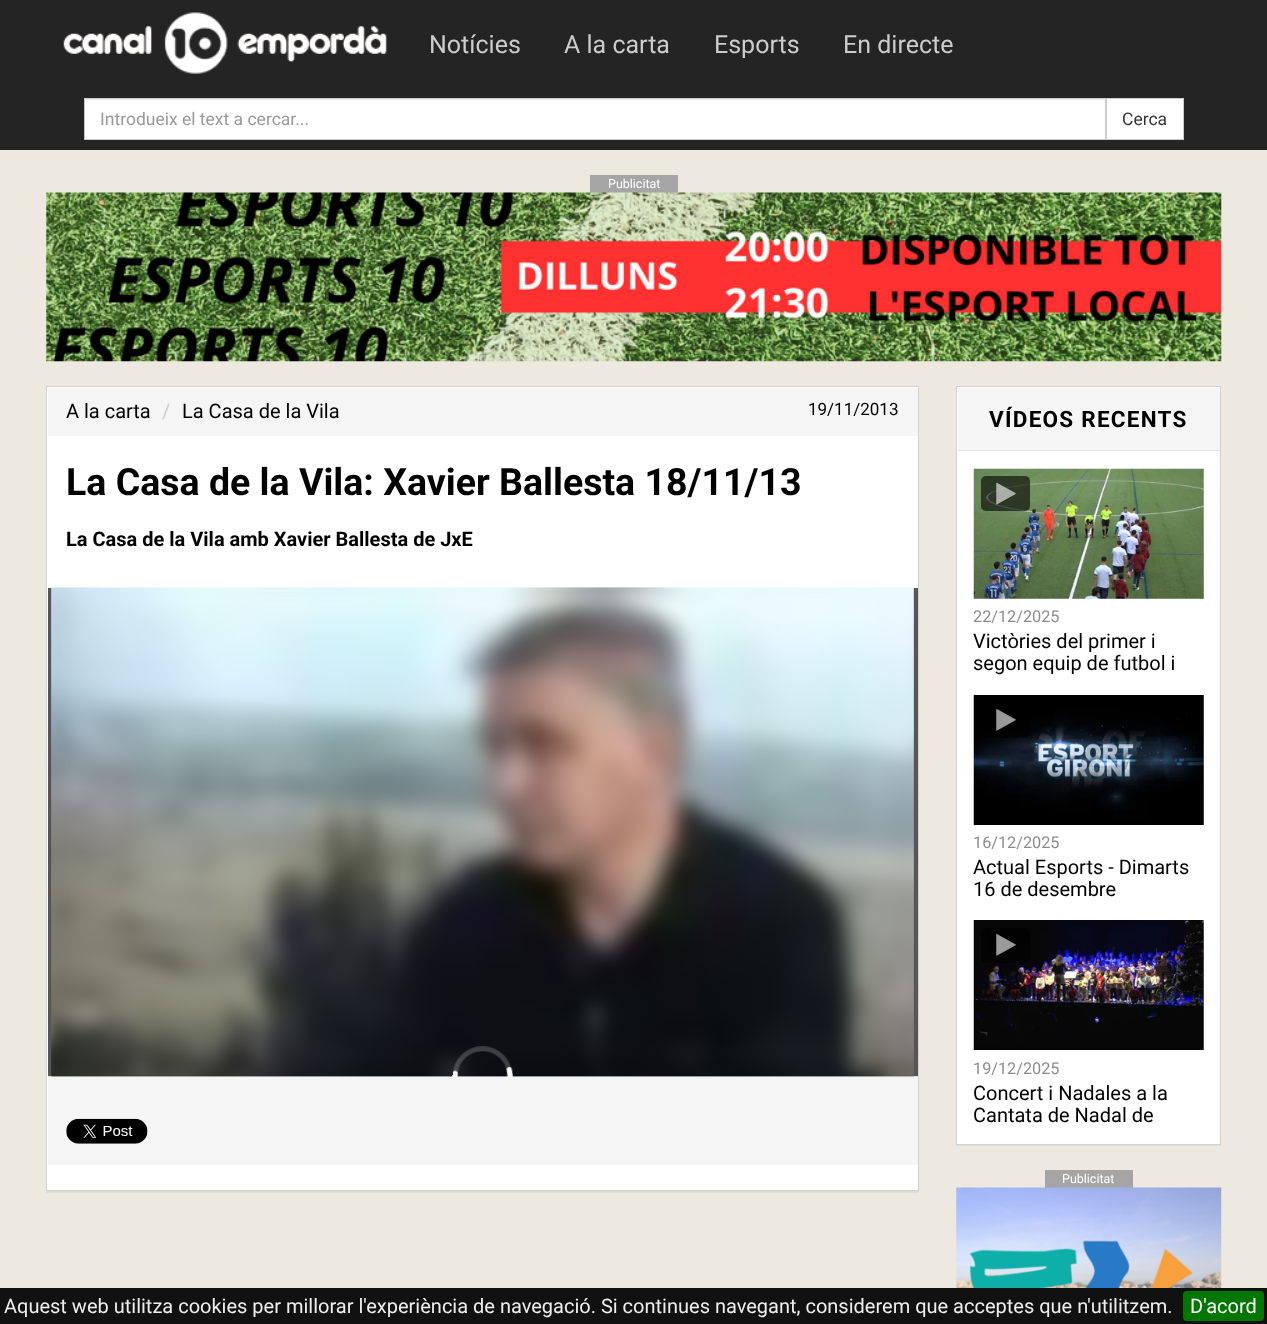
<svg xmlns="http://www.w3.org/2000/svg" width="1267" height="1324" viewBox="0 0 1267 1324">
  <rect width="100%" height="100%" fill="rgb(237,233,225)"/>
  <rect x="0" y="0" width="1267" height="150" fill="rgb(36,36,36)"/>
  <image x="63" y="12" width="324" height="62" href="pic1.png"/>
  <g font-family="Roboto" font-size="25" fill="rgb(204,204,204)">
    <text x="429" y="53">Notícies</text>
    <text x="564" y="53">A la carta</text>
    <text x="714" y="53">Esports</text>
    <text x="843" y="53">En directe</text>
  </g>
  <rect x="85" y="100" width="1020" height="39" fill="rgb(255,255,255)"/>
  <rect x="85" y="99" width="1020" height="1" fill="rgb(236,236,236)"/>
  <rect x="84.5" y="98.5" width="1021" height="41" fill="none" stroke="rgb(204,204,204)"/>
  <text x="100" y="125" font-family="Roboto" font-size="17.5" fill="rgb(153,153,153)">Introdueix el text a cercar...</text>
  <rect x="1106.5" y="98.5" width="77" height="41" fill="rgb(255,255,255)" stroke="rgb(204,204,204)"/>
  <text x="1122" y="125" font-family="Roboto" font-size="17.5" fill="rgb(51,51,51)">Cerca</text>
  <rect x="590" y="175" width="88" height="18" fill="rgb(165,165,165)"/>
  <text x="608" y="188" font-family="Roboto" font-size="12.5" fill="rgb(255,255,255)">Publicitat</text>
  <image x="46" y="192" width="1176" height="170" href="pic2.png"/>
  <rect x="46" y="388" width="873" height="805" fill="rgba(0,0,0,0.05)" filter="blur(0.5px)"/>
  <rect x="46.5" y="386.5" width="872" height="804" fill="rgb(255,255,255)" stroke="rgb(209,209,209)"/>
  <rect x="48" y="388" width="870" height="48" fill="rgb(245,245,245)"/>
  <text x="66" y="418" font-family="Roboto" font-size="20" fill="rgb(0,0,0)">A la carta</text>
  <text x="162" y="418" font-family="Roboto" font-size="20" fill="rgb(204,204,204)">/</text>
  <text x="182" y="418" font-family="Roboto" font-size="20" fill="rgb(0,0,0)">La Casa de la Vila</text>
  <text x="808" y="415" font-family="Roboto" font-size="17" fill="rgb(0,0,0)">19/11/2013</text>
  <text x="66" y="495" font-family="Roboto" font-size="37.5" font-weight="bold" fill="rgb(0,0,0)">La Casa de la Vila: Xavier Ballesta 18/11/13</text>
  <text x="66" y="546" font-family="Roboto" font-size="20" font-weight="bold" fill="rgb(0,0,0)">La Casa de la Vila amb Xavier Ballesta de JxE</text>
  <rect x="48" y="588" width="870" height="488" fill="rgb(86,86,86)"/>
  <rect x="48" y="1076" width="870" height="1" fill="rgb(221,221,221)"/>
  <image x="51" y="587" width="863" height="490" href="pic3.png"/>
  <rect x="48" y="1077" width="870" height="88" fill="rgb(245,245,245)"/>
  <image x="66" y="1118" width="82" height="26" href="pic4.png"/>
  <rect x="956" y="388" width="265" height="758" fill="rgba(0,0,0,0.05)" filter="blur(0.5px)"/>
  <rect x="956.5" y="386.5" width="264" height="758" fill="rgb(255,255,255)" stroke="rgb(209,209,209)"/>
  <rect x="958" y="388" width="262" height="62" fill="rgb(245,245,245)"/>
  <rect x="958" y="450" width="262" height="1" fill="rgb(228,228,228)"/>
  <text x="989" y="427" font-family="Roboto" font-size="22.5" font-weight="bold" letter-spacing="1.25" fill="rgb(0,0,0)">VÍDEOS RECENTS</text>
  <image x="973" y="468" width="231" height="131" href="pic5.png"/>
  <rect x="981" y="476" width="49" height="35" rx="5" fill="rgba(0,0,0,0.6)"/>
  <image x="996" y="482" width="20" height="23" href="pic6.png"/>
  <text x="973" y="622" font-family="Roboto" font-size="16.25" fill="rgb(140,140,140)">22/12/2025</text>
  <g font-family="Roboto" font-size="20" fill="rgb(0,0,0)">
    <text>
      <tspan x="973" y="648">Victòries del primer i</tspan>
      <tspan x="973" y="670">segon equip de futbol i</tspan>
    </text>
  </g>
  <image x="973" y="695" width="231" height="130" href="pic7.png"/>
  <rect x="981" y="703" width="49" height="35" rx="5" fill="rgba(0,0,0,0.6)"/>
  <image x="996" y="709" width="20" height="22" href="pic8.png"/>
  <text x="973" y="848" font-family="Roboto" font-size="16.25" fill="rgb(140,140,140)">16/12/2025</text>
  <g font-family="Roboto" font-size="20" fill="rgb(0,0,0)">
    <text>
      <tspan x="973" y="874">Actual Esports - Dimarts</tspan>
      <tspan x="973" y="896">16 de desembre</tspan>
    </text>
  </g>
  <image x="973" y="920" width="231" height="130" href="pic9.png"/>
  <rect x="981" y="928" width="49" height="35" rx="5" fill="rgba(0,0,0,0.6)"/>
  <image x="996" y="934" width="20" height="22" href="pic10.png"/>
  <text x="973" y="1074" font-family="Roboto" font-size="16.25" fill="rgb(140,140,140)">19/12/2025</text>
  <g font-family="Roboto" font-size="20" fill="rgb(0,0,0)">
    <text>
      <tspan x="973" y="1100">Concert i Nadales a la</tspan>
      <tspan x="973" y="1122">Cantata de Nadal de</tspan>
    </text>
  </g>
  <rect x="1045" y="1170" width="88" height="18" fill="rgb(165,165,165)"/>
  <text x="1062" y="1183" font-family="Roboto" font-size="12.5" fill="rgb(255,255,255)">Publicitat</text>
  <image x="956" y="1187" width="266" height="101" href="pic11.png"/>
  <rect x="0" y="1288" width="1267" height="36" fill="rgb(17,17,17)"/>
  <text x="4" y="1313" font-family="Roboto" font-size="20" fill="rgb(238,238,238)">Aquest web utilitza cookies per millorar l'experiència de navegació. Si continues navegant, considerem que acceptes que n'utilitzem.</text>
  <rect x="1183" y="1291" width="81" height="30" rx="4" fill="rgb(0,119,0)"/>
  <text x="1190" y="1313" font-family="Roboto" font-size="20" fill="rgb(255,255,255)">D'acord</text>
</svg>
